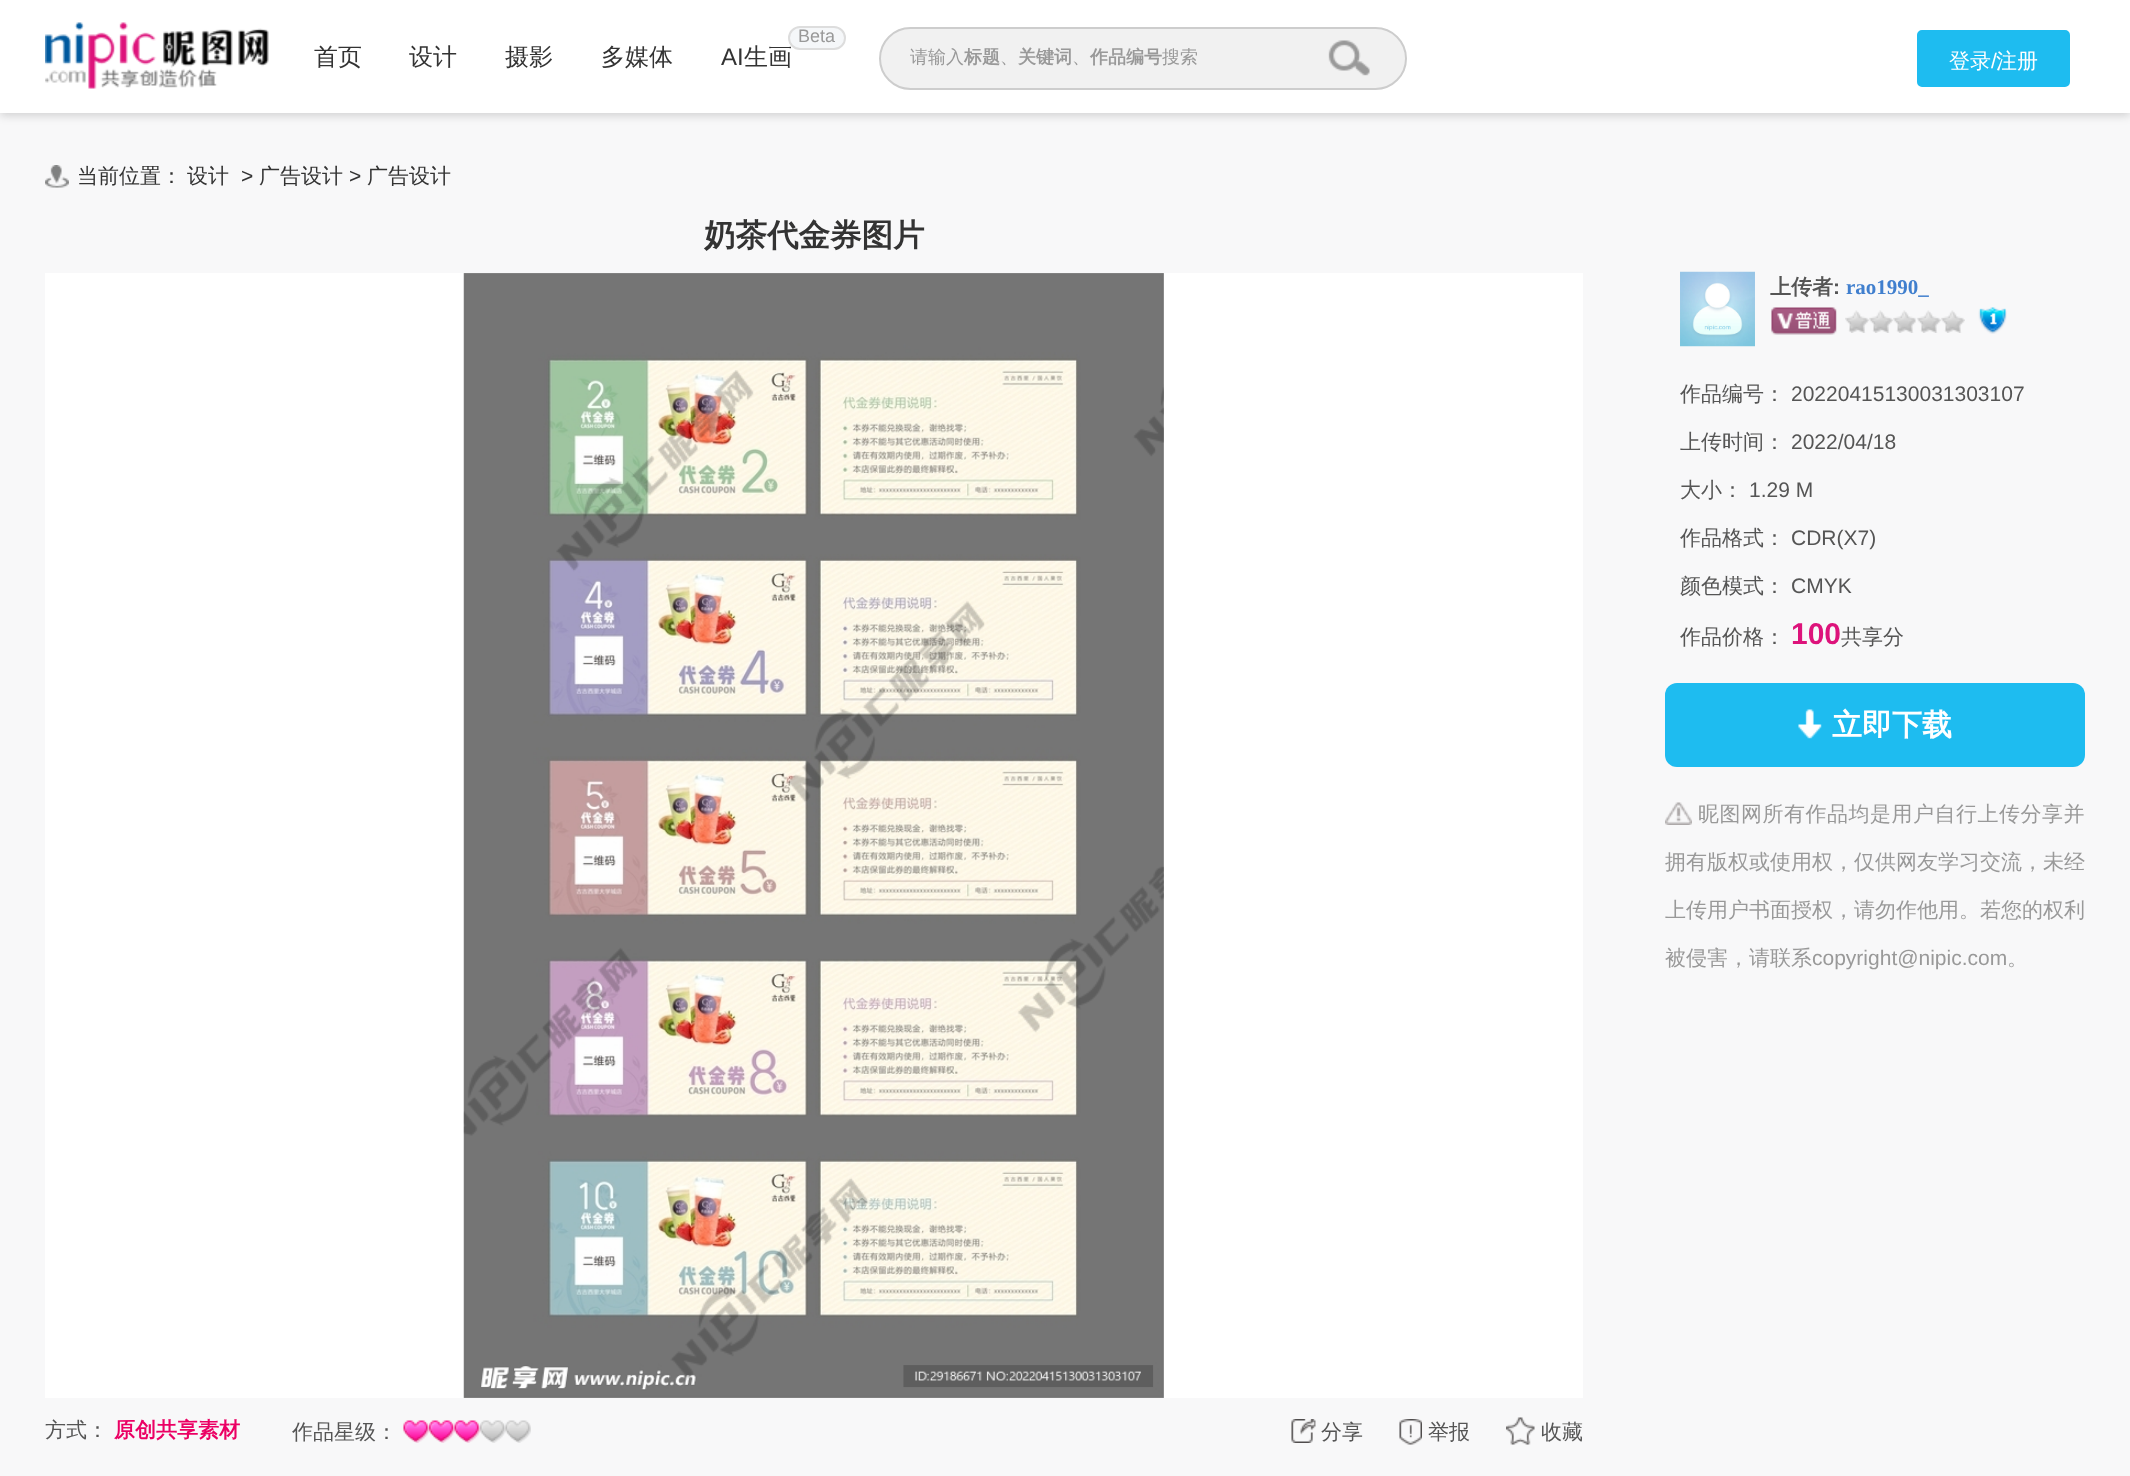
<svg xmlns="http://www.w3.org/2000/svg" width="2130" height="1476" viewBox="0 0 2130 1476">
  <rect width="100%" height="100%" fill="rgb(248,248,249)"/>
  <rect x="0" y="3" width="2130" height="113" fill="rgba(0,0,0,0.15)" filter="blur(4px)"/>
  <rect x="0" y="0" width="2130" height="113" fill="rgb(255,255,255)"/>
  <image x="45" y="22" width="224" height="67" href="pic1.png"/>
  <g font-family="WenQuanYi Zen Hei" font-size="24" font-weight="500" fill="rgb(51,51,51)">
    <text x="314" y="65">首页</text>
    <text x="409" y="65">设计</text>
    <text x="505" y="65">摄影</text>
    <text x="601" y="65">多媒体</text>
    <text x="744" y="65">生画</text>
  </g>
  <rect x="789" y="27" width="56" height="22" rx="11" fill="rgb(245,247,249)" stroke="rgb(221,221,221)" stroke-width="2"/>
  <text x="798" y="42" font-family="Liberation Sans" font-size="18" fill="rgb(153,153,153)">Beta</text>
  <text x="721" y="65" font-family="Liberation Sans" font-size="24" fill="rgb(51,51,51)">AI</text>
  <rect x="880" y="28" width="526" height="61" rx="30.5" fill="rgb(241,241,241)" stroke="rgb(205,205,205)" stroke-width="2"/>
  <text x="910" y="63" font-family="WenQuanYi Zen Hei" font-size="18" font-weight="500" fill="rgb(153,153,153)">请输入</text>
  <text x="964" y="63" font-family="WenQuanYi Zen Hei" font-size="18" font-weight="bold" fill="rgb(153,153,153)">标题</text>
  <text x="1000" y="63" font-family="WenQuanYi Zen Hei" font-size="18" font-weight="500" fill="rgb(153,153,153)">、</text>
  <text x="1018" y="63" font-family="WenQuanYi Zen Hei" font-size="18" font-weight="bold" fill="rgb(153,153,153)">关键词</text>
  <text x="1072" y="63" font-family="WenQuanYi Zen Hei" font-size="18" font-weight="500" fill="rgb(153,153,153)">、</text>
  <text x="1090" y="63" font-family="WenQuanYi Zen Hei" font-size="18" font-weight="bold" fill="rgb(153,153,153)">作品编号</text>
  <text x="1162" y="63" font-family="WenQuanYi Zen Hei" font-size="18" font-weight="500" fill="rgb(153,153,153)">搜索</text>
  <image x="1328" y="40" width="42" height="36" href="pic2.png"/>
  <rect x="1918" y="31" width="151" height="55" rx="4" fill="rgb(30,188,240)" stroke="rgb(30,188,240)" stroke-width="2"/>
  <text x="1949" y="68" font-family="WenQuanYi Zen Hei" font-size="21" font-weight="500" fill="rgb(255,255,255)">登录</text>
  <text x="1991" y="68" font-family="Liberation Sans" font-size="21" fill="rgb(255,255,255)">/</text>
  <text x="1996" y="68" font-family="WenQuanYi Zen Hei" font-size="21" font-weight="500" fill="rgb(255,255,255)">注册</text>
  <image x="45" y="165" width="24" height="23" href="pic3.png"/>
  <g font-family="WenQuanYi Zen Hei" font-size="21" font-weight="500" fill="rgb(51,51,51)">
    <text x="77" y="183">当前位置：</text>
    <text x="187" y="183">设计</text>
  </g>
  <text x="241" y="183" font-family="Liberation Sans" font-size="21" fill="rgb(51,51,51)">&gt;</text>
  <text x="259" y="183" font-family="WenQuanYi Zen Hei" font-size="21" font-weight="500" fill="rgb(51,51,51)">广告设计</text>
  <text x="349" y="183" font-family="Liberation Sans" font-size="21" fill="rgb(51,51,51)">&gt;</text>
  <text x="367" y="183" font-family="WenQuanYi Zen Hei" font-size="21" font-weight="500" fill="rgb(51,51,51)">广告设计</text>
  <text x="704" y="246" font-family="WenQuanYi Zen Hei" font-size="31.5" font-weight="bold" fill="rgb(51,51,51)">奶茶代金券图片</text>
  <rect x="45" y="273" width="1538" height="1125" fill="rgb(255,255,255)"/>
  <image x="463" y="273" width="701" height="1125" href="pic4.png"/>
  <image x="463" y="370" width="701" height="1009" href="pic5.png"/>
  <text x="45" y="1437" font-family="WenQuanYi Zen Hei" font-size="21" font-weight="500" fill="rgb(85,85,85)">方式：</text>
  <text x="114" y="1437" font-family="WenQuanYi Zen Hei" font-size="21" font-weight="bold" fill="rgb(235,0,100)">原创共享素材</text>
  <text x="292" y="1439" font-family="WenQuanYi Zen Hei" font-size="21" font-weight="500" fill="rgb(85,85,85)">作品星级：</text>
  <image x="403" y="1420" width="128" height="23" href="pic6.png"/>
  <image x="1291" y="1419" width="25" height="24" href="pic7.png"/>
  <text x="1321" y="1439" font-family="WenQuanYi Zen Hei" font-size="21" font-weight="500" fill="rgb(85,85,85)">分享</text>
  <image x="1399" y="1419" width="23" height="26" href="pic8.png"/>
  <text x="1428" y="1439" font-family="WenQuanYi Zen Hei" font-size="21" font-weight="500" fill="rgb(85,85,85)">举报</text>
  <image x="1506" y="1417" width="29" height="28" href="pic9.png"/>
  <text x="1541" y="1439" font-family="WenQuanYi Zen Hei" font-size="21" font-weight="500" fill="rgb(85,85,85)">收藏</text>
  <image x="1680" y="271" width="75" height="76" href="pic10.png"/>
  <text x="1770" y="294" font-family="WenQuanYi Zen Hei" font-size="21" font-weight="bold" fill="rgb(85,85,85)">上传者</text>
  <text x="1833" y="294" font-family="Liberation Sans" font-size="21" font-weight="bold" fill="rgb(85,85,85)">:</text>
  <text x="1846" y="294" font-family="Liberation Serif" font-size="21" font-weight="bold" fill="rgb(64,127,206)">rao1990_</text>
  <image x="1771" y="307" width="66" height="28" href="pic11.png"/>
  <image x="1845" y="310" width="120" height="23" href="pic12.png"/>
  <image x="1978" y="307" width="29" height="27" href="pic13.png"/>
  <text x="1680" y="401" font-family="WenQuanYi Zen Hei" font-size="21" font-weight="500" fill="rgb(85,85,85)">作品编号：</text>
  <text x="1791" y="401" font-family="Liberation Sans" font-size="21" fill="rgb(85,85,85)">20220415130031303107</text>
  <text x="1680" y="449" font-family="WenQuanYi Zen Hei" font-size="21" font-weight="500" fill="rgb(85,85,85)">上传时间：</text>
  <text x="1791" y="449" font-family="Liberation Sans" font-size="21" fill="rgb(85,85,85)">2022/04/18</text>
  <text x="1680" y="497" font-family="WenQuanYi Zen Hei" font-size="21" font-weight="500" fill="rgb(85,85,85)">大小：</text>
  <text x="1749" y="497" font-family="Liberation Sans" font-size="21" fill="rgb(85,85,85)">1.29 M</text>
  <text x="1680" y="545" font-family="WenQuanYi Zen Hei" font-size="21" font-weight="500" fill="rgb(85,85,85)">作品格式：</text>
  <text x="1791" y="545" font-family="Liberation Sans" font-size="21" fill="rgb(85,85,85)">CDR(X7)</text>
  <text x="1680" y="593" font-family="WenQuanYi Zen Hei" font-size="21" font-weight="500" fill="rgb(85,85,85)">颜色模式：</text>
  <text x="1791" y="593" font-family="Liberation Sans" font-size="21" fill="rgb(85,85,85)">CMYK</text>
  <text x="1680" y="644" font-family="WenQuanYi Zen Hei" font-size="21" font-weight="500" fill="rgb(85,85,85)">作品价格：</text>
  <text x="1791" y="644" font-family="Liberation Sans" font-size="30" font-weight="bold" fill="rgb(221,19,123)">100</text>
  <text x="1841" y="644" font-family="WenQuanYi Zen Hei" font-size="21" font-weight="500" fill="rgb(85,85,85)">共享分</text>
  <rect x="1665" y="683" width="420" height="84" rx="12" fill="rgb(30,188,240)"/>
  <image x="1798" y="709" width="24" height="30" href="pic14.png"/>
  <text x="1832" y="735" font-family="WenQuanYi Zen Hei" font-size="30" font-weight="bold" fill="rgb(255,255,255)">立即下载</text>
  <image x="1665" y="802" width="27" height="23" href="pic15.png"/>
  <text x="1698" y="821" font-family="WenQuanYi Zen Hei" font-size="21" font-weight="500" letter-spacing="0.5" fill="rgb(153,153,153)">昵图网所有作品均是用户自行上传分享并</text>
  <g font-family="WenQuanYi Zen Hei" font-size="21" font-weight="500" fill="rgb(153,153,153)">
    <text x="1665" y="869">拥有版权或使用权，仅供网友学习交流，未经</text>
    <text x="1665" y="917">上传用户书面授权，请勿作他用。若您的权利</text>
    <text x="1665" y="965">被侵害，请联系</text>
  </g>
  <text x="1812" y="965" font-family="Liberation Sans" font-size="21" fill="rgb(153,153,153)">copyright@nipic.com</text>
  <text x="2007" y="965" font-family="WenQuanYi Zen Hei" font-size="21" font-weight="500" fill="rgb(153,153,153)">。</text>
</svg>
